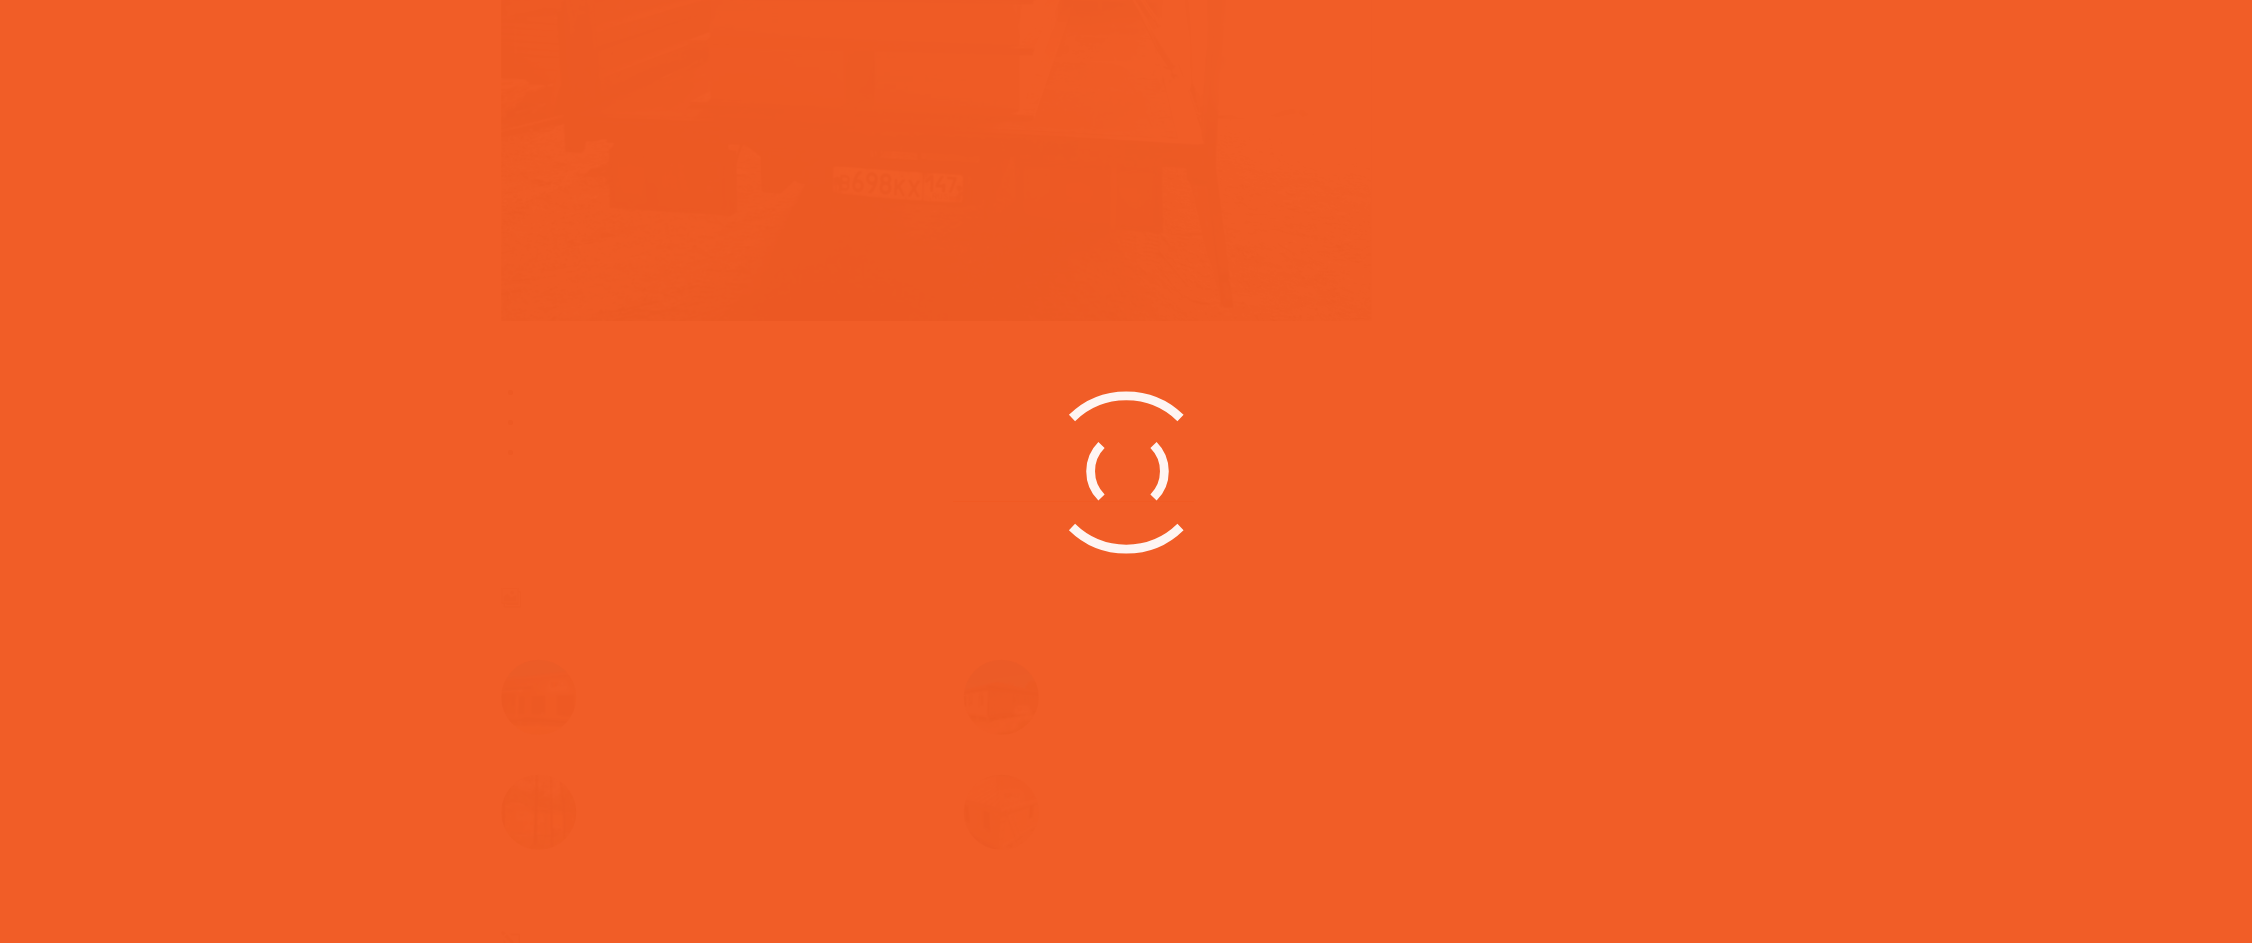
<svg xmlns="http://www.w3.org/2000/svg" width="2252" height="943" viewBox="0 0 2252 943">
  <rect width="100%" height="100%" fill="rgb(241,93,39)"/>
  <image x="501" y="0" width="871" height="321" href="pic1.png"/>
  <circle cx="510.5" cy="392.5" r="2.5" fill="rgb(238,90,36)"/>
  <circle cx="510.5" cy="422.5" r="2.5" fill="rgb(238,90,36)"/>
  <circle cx="510.5" cy="452.5" r="2.5" fill="rgb(238,90,36)"/>
  <rect x="953" y="501" width="241" height="1" fill="rgb(241,90,35)"/>
  <image x="501" y="588" width="20" height="20" href="pic2.png"/>
  <image x="501" y="659" width="76" height="76" href="pic3.png"/>
  <image x="963" y="659" width="76" height="76" href="pic4.png"/>
  <image x="501" y="774" width="76" height="76" href="pic5.png"/>
  <image x="963" y="774" width="76" height="76" href="pic6.png"/>
  <image x="501" y="931" width="19" height="12" href="pic7.png"/>
  <path d="M1072 418C1102 388.5 1150.5 388.5 1180.5 418" fill="none" stroke="rgb(254,245,242)" stroke-width="8.8"/>
  <path d="M1180.5 527C1150.5 556.5 1102 556.5 1072 527" fill="none" stroke="rgb(254,245,242)" stroke-width="8.8"/>
  <path d="M1153.5 445C1168 459.5 1168 483 1153.5 497.5" fill="none" stroke="rgba(255,255,255,0.94)" stroke-width="8.8"/>
  <path d="M1101.5 497.5C1087 483 1087 459.5 1101.5 445" fill="none" stroke="rgba(255,255,255,0.94)" stroke-width="8.8"/>
</svg>
